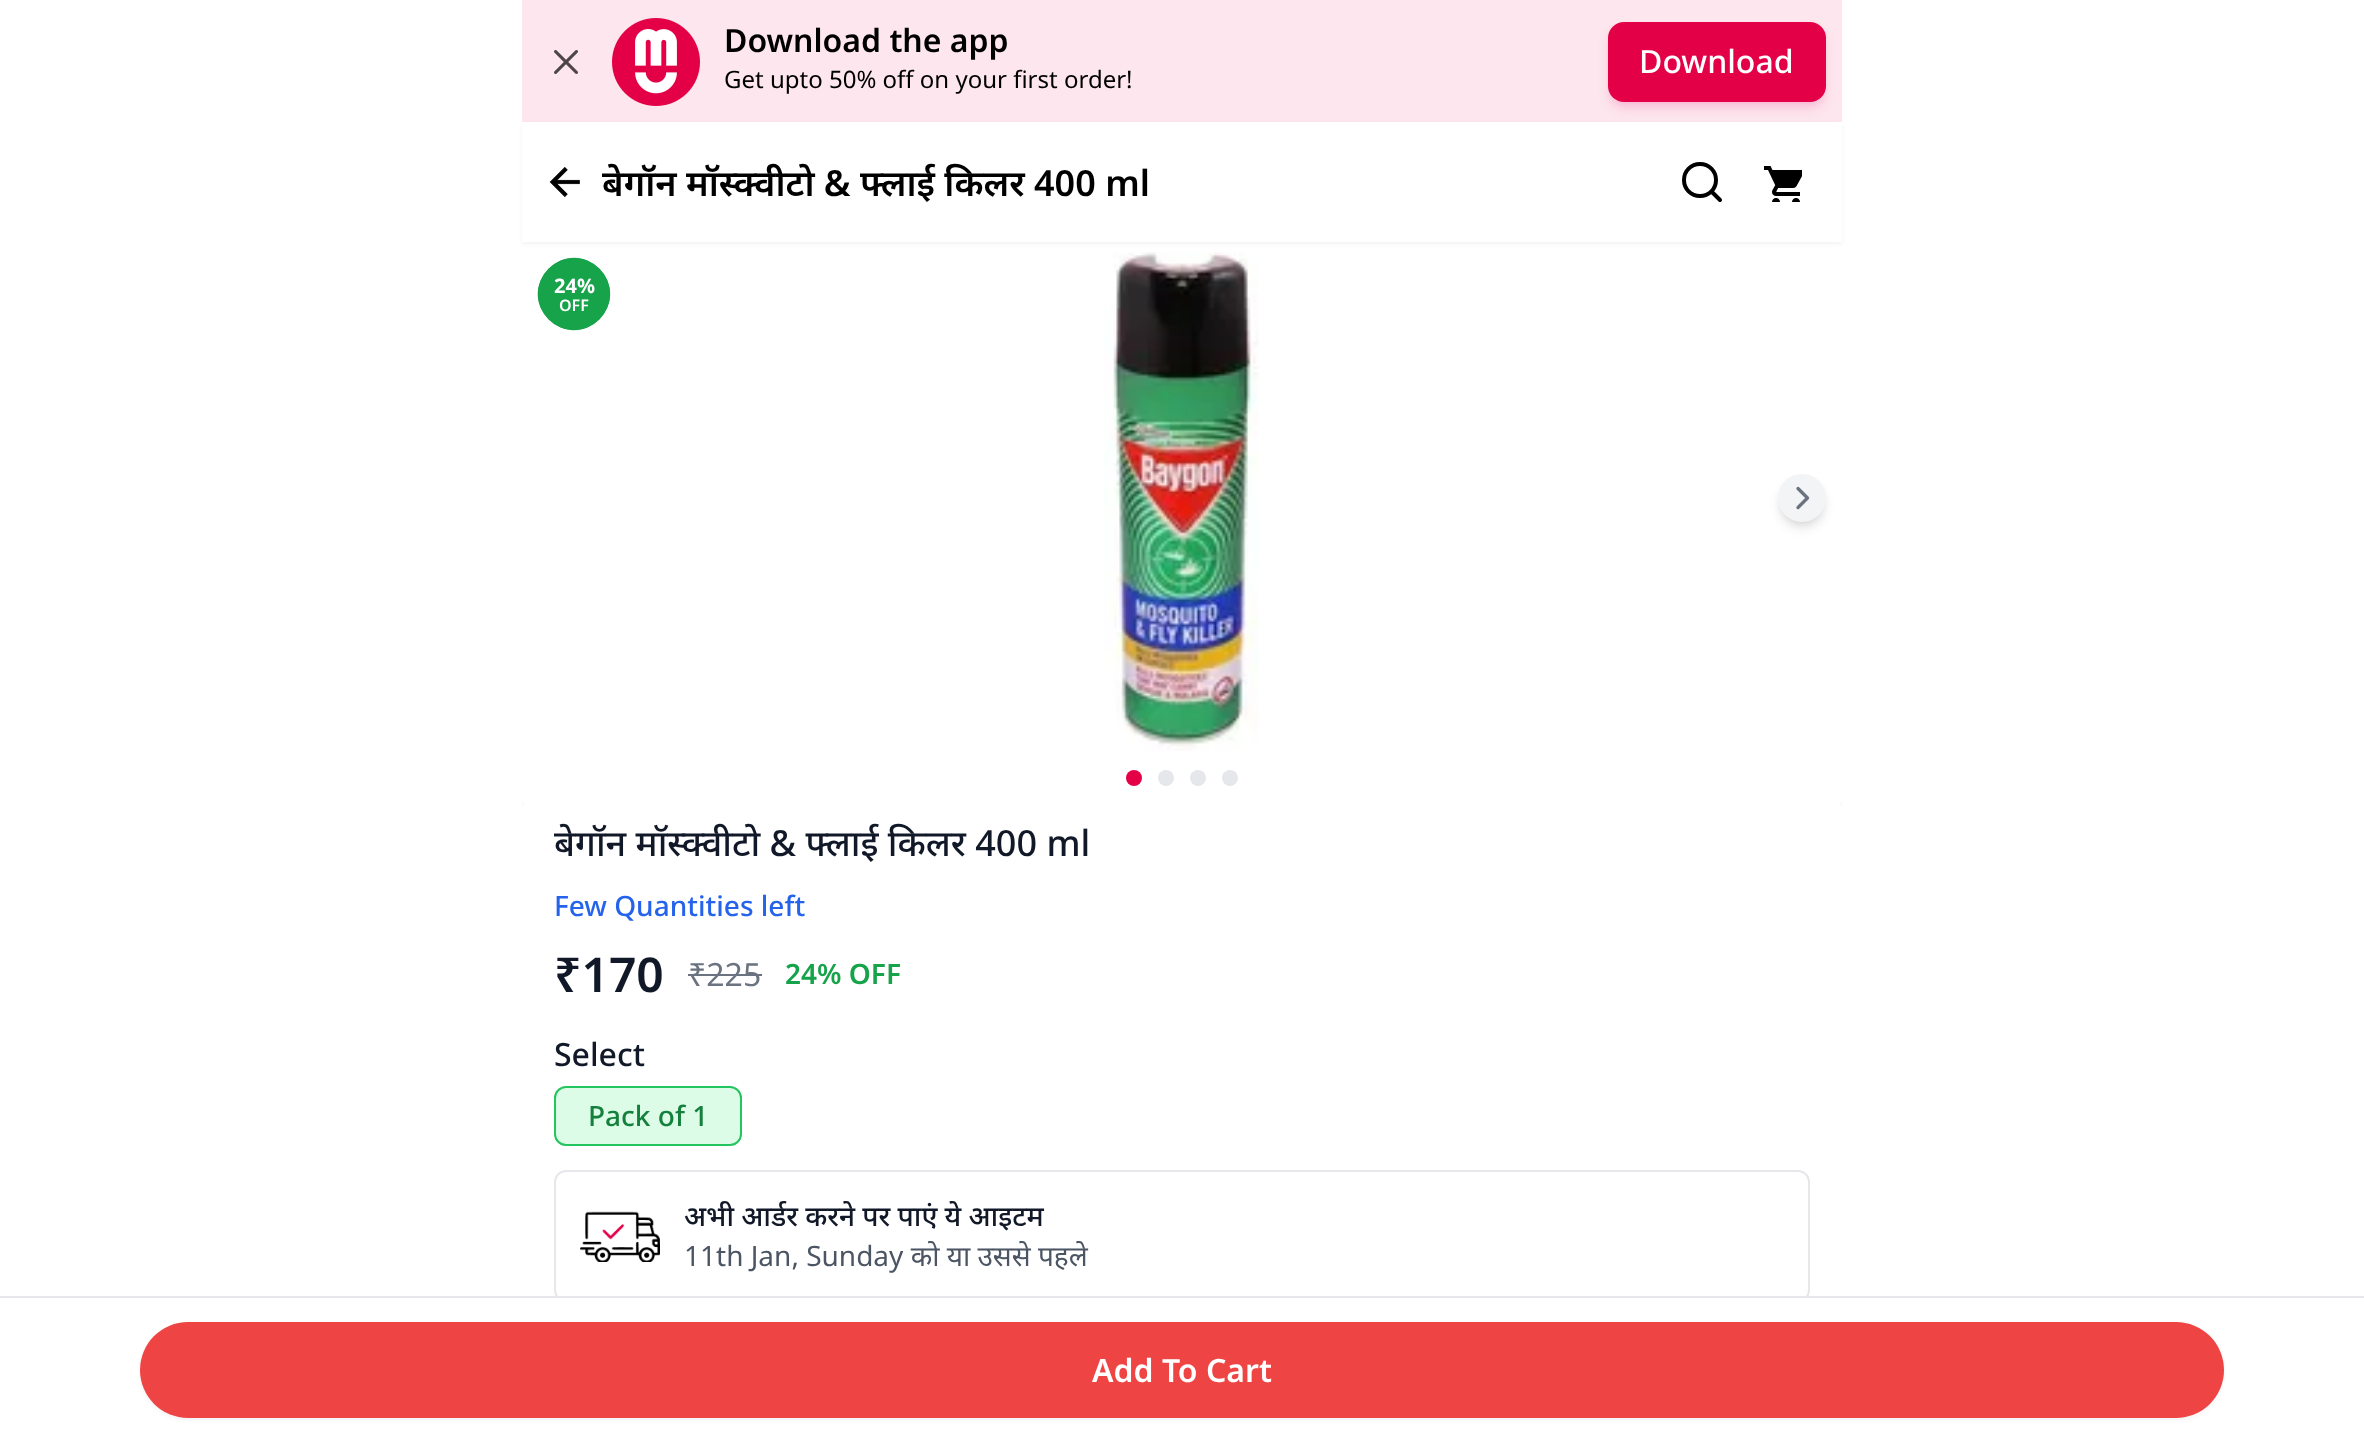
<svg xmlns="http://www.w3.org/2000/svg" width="2364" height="1442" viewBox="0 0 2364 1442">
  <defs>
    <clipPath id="clip1"><rect x="602" y="154" width="1048" height="56"/></clipPath>
  </defs>
  <rect width="100%" height="100%" fill="rgb(255,255,255)"/>
  <rect x="522" y="0" width="1320" height="122" fill="rgb(253,230,237)"/>
  <image x="554" y="50" width="24" height="24" href="pic1.png"/>
  <image x="612" y="18" width="88" height="88" href="pic2.png"/>
  <text x="724" y="52" font-family="Noto Sans" font-size="32" font-weight="600" fill="rgb(0,0,0)">Download the app</text>
  <text x="724" y="88" font-family="Noto Sans" font-size="24" fill="rgb(0,0,0)">Get upto 50% off on your first order!</text>
  <rect x="1612" y="30" width="210" height="72" rx="12" fill="rgba(236,72,153,0.2)" filter="blur(4px)"/>
  <rect x="1610" y="32" width="214" height="76" rx="14" fill="rgba(236,72,153,0.2)" filter="blur(6px)"/>
  <rect x="1608" y="22" width="218" height="80" rx="16" fill="rgb(228,0,70)"/>
  <text x="1639" y="73" font-family="Noto Sans" font-size="32" font-weight="500" fill="rgb(255,255,255)">Download</text>
  <rect x="522" y="802" width="1320" height="12" fill="rgb(249,250,251)"/>
  <rect x="522" y="124" width="1320" height="120" fill="rgba(0,0,0,0.05)" filter="blur(2px)"/>
  <rect x="522" y="122" width="1320" height="120" fill="rgb(255,255,255)"/>
  <image x="549" y="167" width="31" height="30" href="pic3.png"/>
  <g clip-path="url(#clip1)">
    <text x="602" y="196" font-family="Noto Sans" font-size="36" font-weight="600" fill="rgb(0,0,0)">बेगॉन मॉस्क्वीटो &amp; फ्लाई किलर 400 ml</text>
  </g>
  <path d="M1700 196C1709 196 1716 189 1716 180C1716 171 1709 164 1700 164C1691 164 1684 171 1684 180C1684 189 1691 196 1700 196ZM1720 200L1711.5 191.5" fill="none" stroke="rgb(0,0,0)" stroke-width="4" stroke-linecap="round" stroke-linejoin="round"/>
  <image x="1764" y="166" width="38" height="36" href="pic4.png"/>
  <circle cx="574" cy="294" r="36" fill="rgb(22,163,74)"/>
  <path d="M599 269C614 283 614 305 599 319C585 334 563 334 549 319C534 305 534 283 549 269C563 254 585 254 599 269Z" fill="rgb(22,163,74)"/>
  <text x="554" y="293" font-family="Noto Sans" font-size="20" font-weight="bold" fill="rgb(255,255,255)">24%</text>
  <text x="559" y="311" font-family="Noto Sans" font-size="16" font-weight="600" fill="rgb(255,255,255)">OFF</text>
  <image x="1104" y="252" width="155" height="499" href="pic5.png"/>
  <rect x="1782" y="482" width="40" height="40" rx="20" fill="rgba(0,0,0,0.1)" filter="blur(4px)"/>
  <rect x="1780" y="484" width="44" height="44" rx="22" fill="rgba(0,0,0,0.1)" filter="blur(6px)"/>
  <circle cx="1802" cy="498" r="24" fill="rgb(243,244,246)"/>
  <path d="M1798 488.5L1807.5 498L1798 507.5" fill="none" stroke="rgb(107,114,128)" stroke-width="3.3" stroke-linecap="round" stroke-linejoin="round"/>
  <path d="M554 782H1810C1827.5 782 1842 796.5 1842 814V1334H522V814C522 796.5 536.5 782 554 782Z" fill="rgb(255,255,255)"/>
  <circle cx="1134" cy="778" r="8" fill="rgb(228,0,70)"/>
  <circle cx="1166" cy="778" r="8" fill="rgb(229,231,235)"/>
  <circle cx="1198" cy="778" r="8" fill="rgb(229,231,235)"/>
  <circle cx="1230" cy="778" r="8" fill="rgb(229,231,235)"/>
  <text x="554" y="856" font-family="Noto Sans" font-size="36" font-weight="500" fill="rgb(17,24,39)">बेगॉन मॉस्क्वीटो &amp; फ्लाई किलर 400 ml</text>
  <text x="554" y="916" font-family="Noto Sans" font-size="28" font-weight="500" fill="rgb(37,99,235)">Few Quantities left</text>
  <text x="554" y="992" font-family="Noto Sans" font-size="48" font-weight="600" fill="rgb(17,24,39)">₹170</text>
  <text x="688" y="986" font-family="Noto Sans" font-size="32" fill="rgb(107,114,128)">₹225</text>
  <rect x="688" y="974" width="74" height="2" fill="rgb(107,114,128)"/>
  <text x="785" y="984" font-family="Noto Sans" font-size="28" font-weight="600" fill="rgb(22,163,74)">24% OFF</text>
  <text x="554" y="1066" font-family="Noto Sans" font-size="32" font-weight="500" fill="rgb(17,24,39)">Select</text>
  <rect x="555" y="1087" width="186" height="58" rx="11" fill="rgb(220,252,231)" stroke="rgb(34,197,94)" stroke-width="2"/>
  <text x="588" y="1126" font-family="Noto Sans" font-size="28" font-weight="500" fill="rgb(21,128,61)">Pack of 1</text>
  <rect x="555" y="1171" width="1254" height="130" rx="11" fill="none" stroke="rgb(229,231,235)" stroke-width="2"/>
  <image x="580" y="1211" width="80" height="51" href="pic6.png"/>
  <text x="684" y="1226" font-family="Noto Sans" font-size="28" font-weight="500" fill="rgb(17,24,39)">अभी आर्डर करने पर पाएं ये आइटम</text>
  <text x="684" y="1266" font-family="Noto Sans" font-size="28" fill="rgb(75,85,99)">11th Jan, Sunday को या उससे पहले</text>
  <rect x="557" y="1298" width="1250" height="4" fill="rgb(255,255,255)"/>
  <rect x="0" y="1296" width="2364" height="2" fill="rgb(229,231,235)"/>
  <rect x="140" y="1324" width="2084" height="96" rx="48" fill="rgba(0,0,0,0.05)" filter="blur(2px)"/>
  <rect x="140" y="1322" width="2084" height="96" rx="48" fill="rgb(239,68,68)"/>
  <text x="1092" y="1382" font-family="Noto Sans" font-size="32" font-weight="600" fill="rgb(255,255,255)">Add To Cart</text>
</svg>
